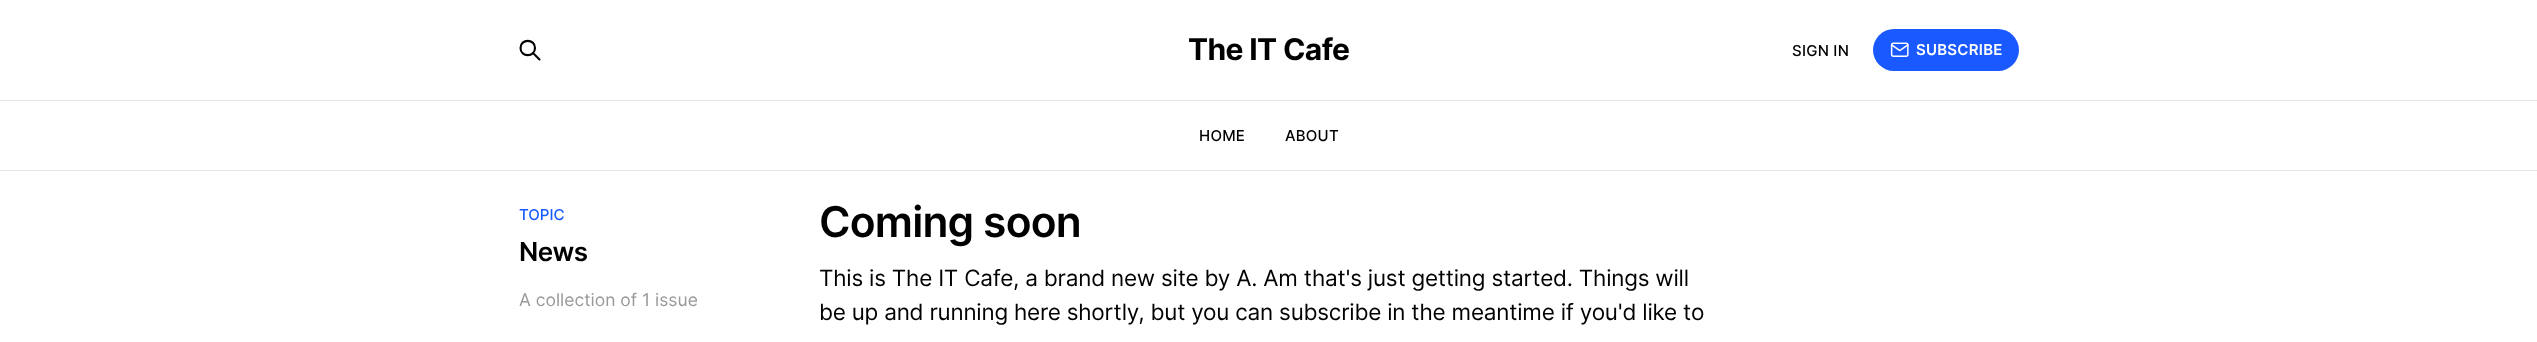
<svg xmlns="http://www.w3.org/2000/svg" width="2537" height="342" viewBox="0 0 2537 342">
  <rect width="100%" height="100%" fill="rgb(255,255,255)"/>
  <text x="1188" y="60" font-family="Inter" font-size="30" font-weight="bold" letter-spacing="-0.6" fill="rgb(0,0,0)">The IT Cafe</text>
  <path d="M539.5 59.5L533 53M535 48C535 57.5 520.5 57.5 520.5 48C520.5 38.5 535 38.5 535 48Z" fill="none" stroke="rgb(0,0,0)" stroke-width="2.1" stroke-linecap="round" stroke-linejoin="round"/>
  <text x="1792" y="56" font-family="Inter" font-size="15" font-weight="500" letter-spacing="0.25" fill="rgb(0,0,0)">SIGN IN</text>
  <rect x="1873" y="29" width="146" height="42" rx="21" fill="rgb(25,89,255)"/>
  <image x="1890" y="42" width="19" height="15" href="pic1.png"/>
  <text x="1916" y="55" font-family="Inter" font-size="15" font-weight="600" letter-spacing="0.25" fill="rgb(255,255,255)">SUBSCRIBE</text>
  <rect x="0" y="100" width="2537" height="1" fill="rgb(230,230,230)"/>
  <g font-family="Inter" font-size="15" font-weight="500" letter-spacing="0.25" fill="rgb(0,0,0)">
    <text x="1199" y="141">HOME</text>
    <text x="1285" y="141">ABOUT</text>
  </g>
  <rect x="0" y="170" width="2537" height="1" fill="rgb(230,230,230)"/>
  <text x="519" y="220" font-family="Inter" font-size="15" font-weight="500" fill="rgb(25,89,255)">TOPIC</text>
  <text x="519" y="261" font-family="Inter" font-size="26" font-weight="600" letter-spacing="-0.5" fill="rgb(0,0,0)">News</text>
  <text x="519" y="306" font-family="Inter" font-size="17.5" fill="rgb(153,153,153)">A collection of 1 issue</text>
  <text x="819" y="237" font-family="Inter" font-size="42.5" font-weight="600" letter-spacing="-0.8" fill="rgb(0,0,0)">Coming soon</text>
  <g font-family="Inter" font-size="22.5" letter-spacing="-0.22" fill="rgb(0,0,0)">
    <text>
      <tspan x="819" y="286">This is The IT Cafe, a brand new site by A. Am that's just getting started. Things will</tspan>
      <tspan x="819" y="320">be up and running here shortly, but you can subscribe in the meantime if you'd like to</tspan>
    </text>
  </g>
</svg>
